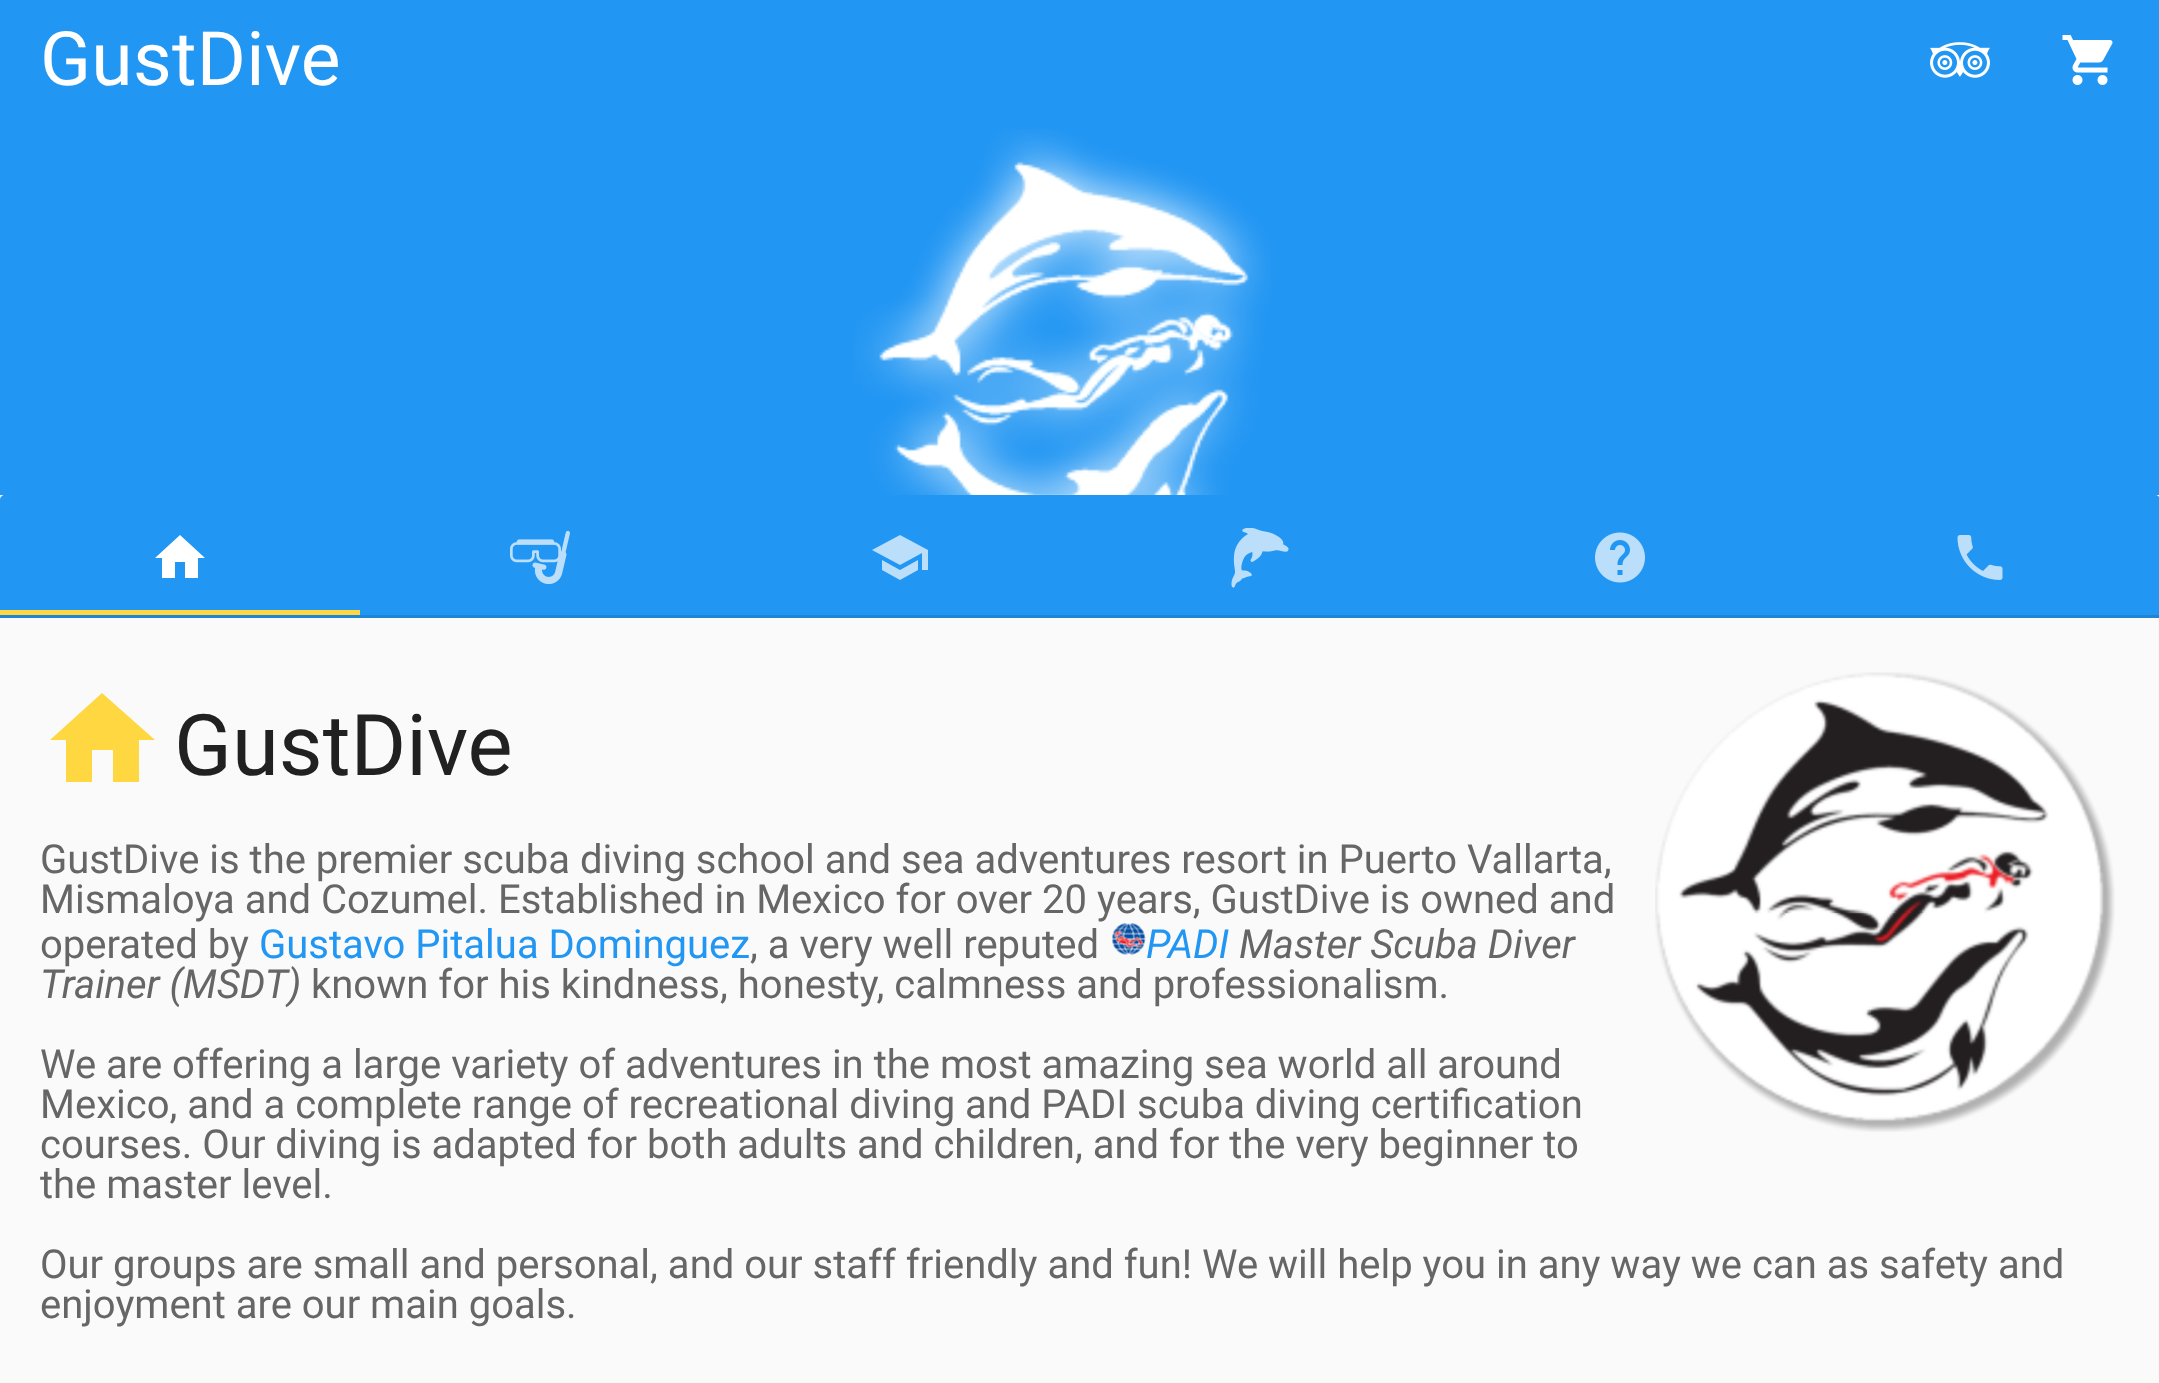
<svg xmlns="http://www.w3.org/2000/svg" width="2159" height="1383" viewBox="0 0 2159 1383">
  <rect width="100%" height="100%" fill="rgb(250,250,250)"/>
  <rect x="0" y="0" width="2159" height="495" fill="rgb(33,150,243)"/>
  <text x="40" y="85" font-family="Roboto" font-size="75" letter-spacing="0.25" fill="rgb(255,255,255)">GustDive</text>
  <image x="1930" y="42" width="60" height="36" href="pic1.png"/>
  <image x="2062" y="35" width="51" height="50" href="pic2.png"/>
  <image x="854" y="129" width="417" height="366" href="pic3.png"/>
  <path d="M5 495H2155C2158 495 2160 497 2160 500V618H0V500C0 497 2 495 5 495Z" fill="rgb(33,150,243)"/>
  <rect x="0" y="615" width="2159" height="3" fill="rgb(29,132,214)"/>
  <path d="M175 578V562H185V578H198V558H205L180 535L155 558H162V578Z" fill="rgb(255,255,255)"/>
  <image x="510" y="530" width="60" height="55" href="pic4.png"/>
  <path d="M882 560V570L900 580L918 570V560L900 570ZM900 535L872 550L900 565L922 553V570H928V550Z" fill="rgb(187,222,251)"/>
  <image x="1231" y="528" width="58" height="60" href="pic5.png"/>
  <image x="1595" y="532" width="50" height="51" href="pic6.png"/>
  <image x="1957" y="535" width="46" height="45" href="pic7.png"/>
  <rect x="0" y="610" width="360" height="5" fill="rgb(255,215,64)"/>
  <path d="M92 782V750H113V782H139V740H155L102 693L50 740H66V782Z" fill="rgb(255,215,64)"/>
  <text x="174" y="775" font-family="Roboto" font-size="85" fill="rgb(33,33,33)">GustDive</text>
  <image x="1655" y="672" width="460" height="460" href="pic8.png"/>
  <g font-family="Roboto" font-size="40" fill="rgb(102,102,102)">
    <text>
      <tspan x="40" y="873">GustDive is the premier scuba diving school and sea adventures resort in Puerto Vallarta,</tspan>
      <tspan x="40" y="913">Mismaloya and Cozumel. Established in Mexico for over 20 years, GustDive is owned and</tspan>
      <tspan x="40" y="958">operated by</tspan>
    </text>
  </g>
  <text x="259" y="958" font-family="Roboto" font-size="40" fill="rgb(33,150,243)">Gustavo Pitalua Dominguez</text>
  <text x="750" y="958" font-family="Roboto" font-size="40" fill="rgb(102,102,102)">, a very well reputed</text>
  <image x="1112" y="923" width="34" height="32" href="pic9.png"/>
  <text x="1146" y="958" font-family="Roboto" font-size="40" font-style="italic" fill="rgb(33,150,243)">PADI</text>
  <g font-family="Roboto" font-size="40" font-style="italic" fill="rgb(102,102,102)">
    <text x="1239" y="958">Master Scuba Diver</text>
    <text x="40" y="998">Trainer (MSDT)</text>
  </g>
  <g font-family="Roboto" font-size="40" fill="rgb(102,102,102)">
    <text x="311" y="998">known for his kindness, honesty, calmness and professionalism.</text>
    <text>
      <tspan x="40" y="1078">We are offering a large variety of adventures in the most amazing sea world all around</tspan>
      <tspan x="40" y="1118">Mexico, and a complete range of recreational diving and PADI scuba diving certification</tspan>
      <tspan x="40" y="1158">courses. Our diving is adapted for both adults and children, and for the very beginner to</tspan>
      <tspan x="40" y="1198">the master level.</tspan>
    </text>
    <text>
      <tspan x="40" y="1278">Our groups are small and personal, and our staff friendly and fun! We will help you in any way we can as safety and</tspan>
      <tspan x="40" y="1318">enjoyment are our main goals.</tspan>
    </text>
  </g>
</svg>
